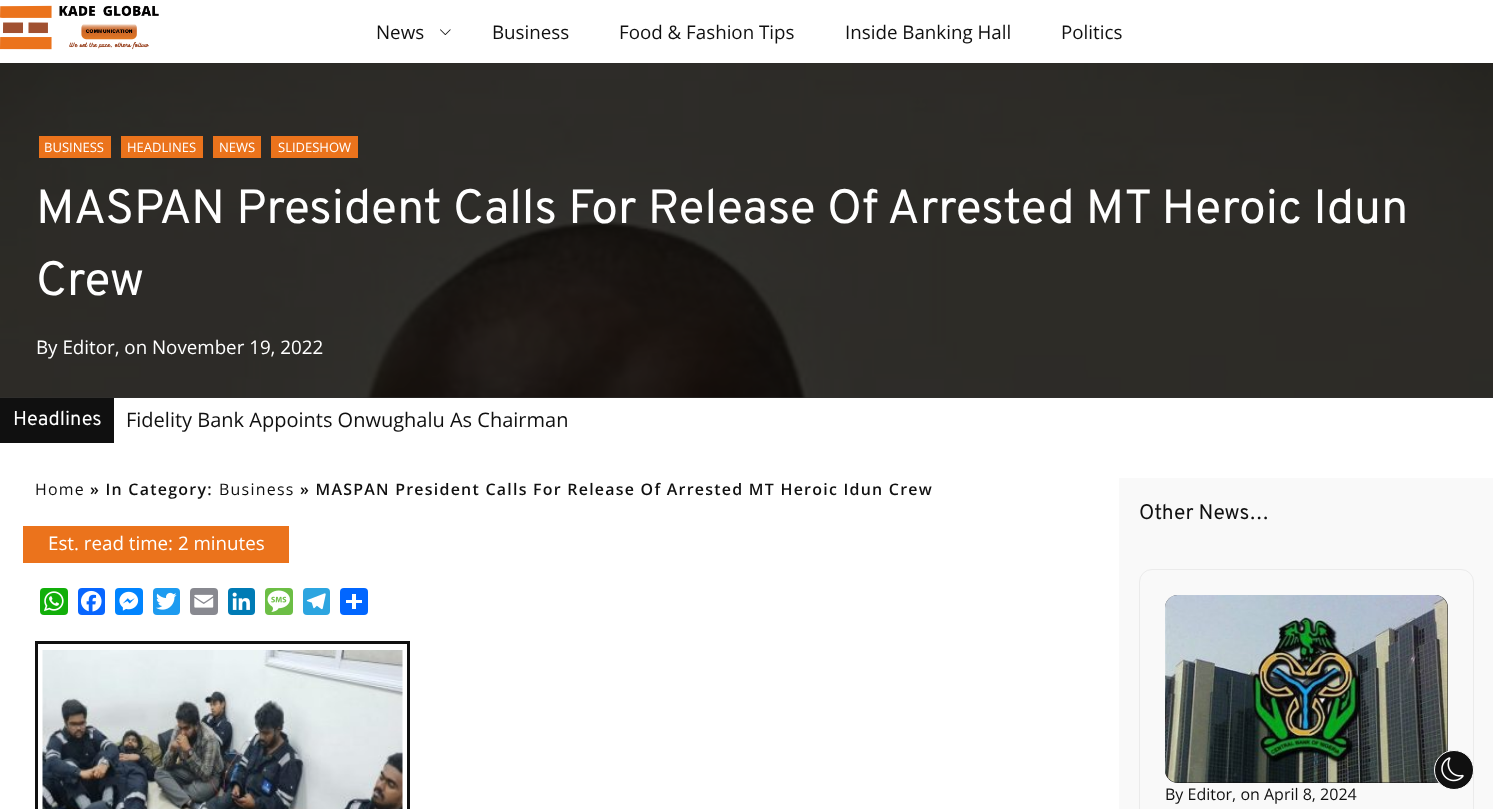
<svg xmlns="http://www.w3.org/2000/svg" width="1493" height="809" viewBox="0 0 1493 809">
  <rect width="100%" height="100%" fill="rgb(255,255,255)"/>
  <image x="0" y="5" width="159" height="45" href="pic1.png"/>
  <text x="376" y="39" font-family="Open Sans" font-size="18.75" fill="rgb(16,16,16)">News</text>
  <image x="440" y="29" width="11" height="6" href="pic2.png"/>
  <g font-family="Open Sans" font-size="18.75" fill="rgb(16,16,16)">
    <text x="492" y="39">Business</text>
    <text x="619" y="39">Food &amp; Fashion Tips</text>
    <text x="845" y="39">Inside Banking Hall</text>
    <text x="1061" y="39">Politics</text>
  </g>
  <rect x="0" y="397" width="1493" height="1" fill="rgb(48,48,48)"/>
  <image x="0" y="63" width="1493" height="335" href="pic3.png"/>
  <rect x="39" y="136" width="72" height="22" fill="rgb(235,115,28)"/>
  <text x="44" y="152" font-family="Open Sans" font-size="13" fill="rgb(255,255,255)">BUSINESS</text>
  <rect x="121" y="136" width="82" height="22" fill="rgb(235,115,28)"/>
  <text x="127" y="152" font-family="Open Sans" font-size="13" fill="rgb(255,255,255)">HEADLINES</text>
  <rect x="213" y="136" width="48" height="22" fill="rgb(235,115,28)"/>
  <text x="219" y="152" font-family="Open Sans" font-size="13" fill="rgb(255,255,255)">NEWS</text>
  <rect x="271" y="136" width="87" height="22" fill="rgb(235,115,28)"/>
  <text x="278" y="152" font-family="Open Sans" font-size="13" fill="rgb(255,255,255)">SLIDESHOW</text>
  <g font-family="Overpass" font-size="48" fill="rgb(255,255,255)">
    <text>
      <tspan x="36" y="223">MASPAN President Calls For Release Of Arrested MT Heroic Idun</tspan>
      <tspan x="36" y="295">Crew</tspan>
    </text>
  </g>
  <text x="36" y="354" font-family="Open Sans" font-size="18.75" fill="rgb(255,255,255)">By Editor, on November 19, 2022</text>
  <rect x="0" y="398" width="114" height="45" fill="rgb(16,16,16)"/>
  <text x="13" y="425" font-family="Overpass" font-size="20" fill="rgb(255,255,255)">Headlines</text>
  <text x="126" y="427" font-family="Open Sans" font-size="20" fill="rgb(16,16,16)">Fidelity Bank Appoints Onwughalu As Chairman</text>
  <text x="35" y="495" font-family="Open Sans" font-size="15.95" letter-spacing="1.25" fill="rgb(16,16,16)">Home</text>
  <text x="90" y="495" font-family="Open Sans" font-size="15.95" font-weight="600" letter-spacing="1.25" fill="rgb(16,16,16)">» In Category:</text>
  <text x="219" y="495" font-family="Open Sans" font-size="15.95" letter-spacing="1.25" fill="rgb(16,16,16)">Business</text>
  <text x="300" y="495" font-family="Open Sans" font-size="15.95" font-weight="600" letter-spacing="1.25" fill="rgb(16,16,16)">» MASPAN President Calls For Release Of Arrested MT Heroic Idun Crew</text>
  <rect x="23" y="526" width="266" height="37" fill="rgb(235,115,28)"/>
  <text x="48" y="550" font-family="Open Sans" font-size="18.75" fill="rgb(255,255,255)">Est. read time: 2 minutes</text>
  <rect x="40" y="588" width="28" height="27" rx="4" fill="rgb(18,175,10)"/>
  <image x="44" y="591" width="20" height="21" href="pic4.png"/>
  <rect x="78" y="588" width="27" height="27" rx="4" fill="rgb(8,102,255)"/>
  <image x="80" y="590" width="22" height="22" href="pic5.png"/>
  <rect x="115" y="588" width="28" height="27" rx="4" fill="rgb(0,132,255)"/>
  <image x="119" y="591" width="20" height="20" href="pic6.png"/>
  <rect x="153" y="588" width="27" height="27" rx="4" fill="rgb(29,155,240)"/>
  <image x="156" y="592" width="21" height="18" href="pic7.png"/>
  <rect x="190" y="588" width="28" height="27" rx="4" fill="rgb(136,137,144)"/>
  <image x="194" y="594" width="20" height="14" href="pic8.png"/>
  <rect x="228" y="588" width="27" height="27" rx="4" fill="rgb(0,123,181)"/>
  <image x="232" y="592" width="18" height="18" href="pic9.png"/>
  <rect x="265" y="588" width="28" height="27" rx="4" fill="rgb(108,190,69)"/>
  <image x="267" y="590" width="23" height="22" href="pic10.png"/>
  <rect x="303" y="588" width="27" height="27" rx="4" fill="rgb(44,165,224)"/>
  <image x="306" y="593" width="20" height="17" href="pic11.png"/>
  <rect x="340" y="588" width="28" height="27" rx="4" fill="rgb(1,102,255)"/>
  <rect x="352" y="594" width="4" height="15" fill="rgb(255,255,255)"/>
  <rect x="346" y="600" width="16" height="3" fill="rgb(255,255,255)"/>
  <rect x="36.5" y="642.5" width="372" height="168" fill="none" stroke="rgb(16,16,16)" stroke-width="3"/>
  <image x="42" y="650" width="361" height="159" href="pic12.png"/>
  <rect x="1119" y="478" width="374" height="331" fill="rgb(249,249,249)"/>
  <text x="1139" y="519" font-family="Overpass" font-size="21" fill="rgb(16,16,16)">Other News…</text>
  <rect x="1139.5" y="569.5" width="334" height="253" rx="12.5" fill="none" stroke="rgb(235,235,235)"/>
  <rect x="1165" y="595" width="283" height="188" rx="13" fill="rgb(16,16,16)"/>
  <image x="1165" y="595" width="283" height="188" href="pic13.png"/>
  <text x="1165" y="800" font-family="Open Sans" font-size="16" fill="rgb(16,16,16)">By Editor, on April 8, 2024</text>
  <circle cx="1454" cy="770" r="19.5" fill="rgb(16,16,16)" stroke="rgb(255,255,255)"/>
  <image x="1441" y="757" width="23" height="25" href="pic14.png"/>
</svg>
